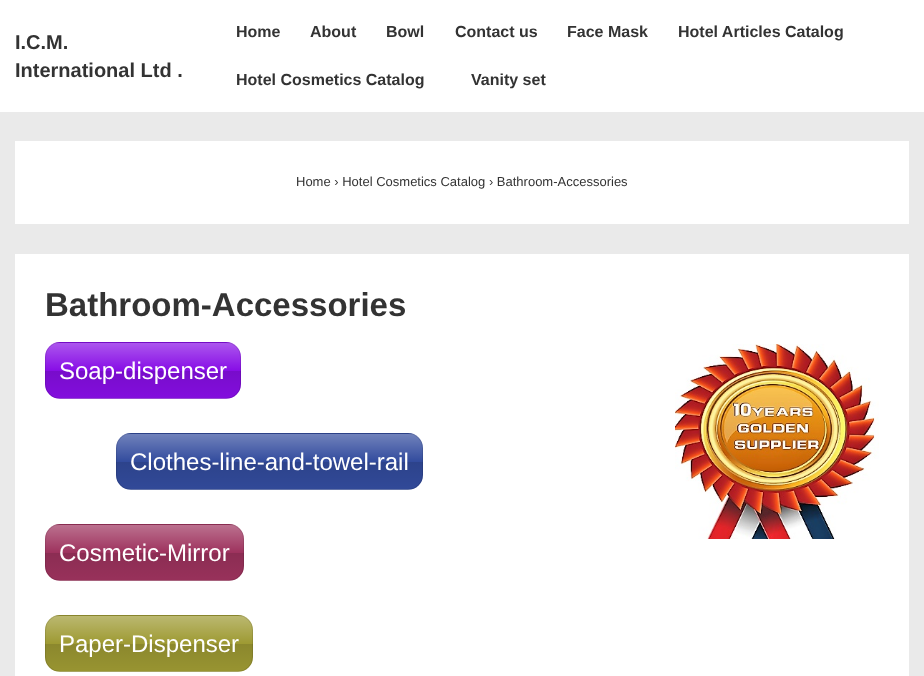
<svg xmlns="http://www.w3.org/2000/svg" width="924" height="676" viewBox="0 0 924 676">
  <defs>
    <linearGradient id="g1" gradientUnits="userSpaceOnUse" x1="143" y1="288" x2="143" y2="343"><stop offset="0" stop-color="rgb(255,255,255)" stop-opacity="0.3"/><stop offset="0.5" stop-color="rgb(255,255,255)" stop-opacity="0"/><stop offset="0.5" stop-color="rgb(0,0,0)" stop-opacity="0"/><stop offset="0.51" stop-color="rgb(0,0,0)" stop-opacity="0.12"/><stop offset="1" stop-color="rgb(0,0,0)" stop-opacity="0.04"/></linearGradient>
    <clipPath id="clip1"><rect x="45" y="342" width="196" height="57" rx="15"/></clipPath>
    <linearGradient id="g2" gradientUnits="userSpaceOnUse" x1="143" y1="343" x2="143" y2="398"><stop offset="0" stop-color="rgb(255,255,255)" stop-opacity="0.3"/><stop offset="0.5" stop-color="rgb(255,255,255)" stop-opacity="0"/><stop offset="0.5" stop-color="rgb(0,0,0)" stop-opacity="0"/><stop offset="0.51" stop-color="rgb(0,0,0)" stop-opacity="0.12"/><stop offset="1" stop-color="rgb(0,0,0)" stop-opacity="0.04"/></linearGradient>
    <linearGradient id="g3" gradientUnits="userSpaceOnUse" x1="143" y1="398" x2="143" y2="453"><stop offset="0" stop-color="rgb(255,255,255)" stop-opacity="0.3"/><stop offset="0.5" stop-color="rgb(255,255,255)" stop-opacity="0"/><stop offset="0.5" stop-color="rgb(0,0,0)" stop-opacity="0"/><stop offset="0.51" stop-color="rgb(0,0,0)" stop-opacity="0.12"/><stop offset="1" stop-color="rgb(0,0,0)" stop-opacity="0.04"/></linearGradient>
    <linearGradient id="g4" gradientUnits="userSpaceOnUse" x1="270" y1="379" x2="270" y2="434"><stop offset="0" stop-color="rgb(255,255,255)" stop-opacity="0.3"/><stop offset="0.5" stop-color="rgb(255,255,255)" stop-opacity="0"/><stop offset="0.5" stop-color="rgb(0,0,0)" stop-opacity="0"/><stop offset="0.51" stop-color="rgb(0,0,0)" stop-opacity="0.12"/><stop offset="1" stop-color="rgb(0,0,0)" stop-opacity="0.04"/></linearGradient>
    <clipPath id="clip2"><rect x="116" y="433" width="307" height="57" rx="15"/></clipPath>
    <linearGradient id="g5" gradientUnits="userSpaceOnUse" x1="270" y1="434" x2="270" y2="489"><stop offset="0" stop-color="rgb(255,255,255)" stop-opacity="0.3"/><stop offset="0.5" stop-color="rgb(255,255,255)" stop-opacity="0"/><stop offset="0.5" stop-color="rgb(0,0,0)" stop-opacity="0"/><stop offset="0.51" stop-color="rgb(0,0,0)" stop-opacity="0.12"/><stop offset="1" stop-color="rgb(0,0,0)" stop-opacity="0.04"/></linearGradient>
    <linearGradient id="g6" gradientUnits="userSpaceOnUse" x1="270" y1="489" x2="270" y2="544"><stop offset="0" stop-color="rgb(255,255,255)" stop-opacity="0.3"/><stop offset="0.5" stop-color="rgb(255,255,255)" stop-opacity="0"/><stop offset="0.5" stop-color="rgb(0,0,0)" stop-opacity="0"/><stop offset="0.51" stop-color="rgb(0,0,0)" stop-opacity="0.12"/><stop offset="1" stop-color="rgb(0,0,0)" stop-opacity="0.04"/></linearGradient>
    <linearGradient id="g7" gradientUnits="userSpaceOnUse" x1="145" y1="470" x2="145" y2="525"><stop offset="0" stop-color="rgb(255,255,255)" stop-opacity="0.3"/><stop offset="0.5" stop-color="rgb(255,255,255)" stop-opacity="0"/><stop offset="0.5" stop-color="rgb(0,0,0)" stop-opacity="0"/><stop offset="0.51" stop-color="rgb(0,0,0)" stop-opacity="0.12"/><stop offset="1" stop-color="rgb(0,0,0)" stop-opacity="0.04"/></linearGradient>
    <clipPath id="clip3"><rect x="45" y="524" width="199" height="57" rx="15"/></clipPath>
    <linearGradient id="g8" gradientUnits="userSpaceOnUse" x1="145" y1="525" x2="145" y2="580"><stop offset="0" stop-color="rgb(255,255,255)" stop-opacity="0.3"/><stop offset="0.5" stop-color="rgb(255,255,255)" stop-opacity="0"/><stop offset="0.5" stop-color="rgb(0,0,0)" stop-opacity="0"/><stop offset="0.51" stop-color="rgb(0,0,0)" stop-opacity="0.12"/><stop offset="1" stop-color="rgb(0,0,0)" stop-opacity="0.04"/></linearGradient>
    <linearGradient id="g9" gradientUnits="userSpaceOnUse" x1="145" y1="580" x2="145" y2="635"><stop offset="0" stop-color="rgb(255,255,255)" stop-opacity="0.3"/><stop offset="0.5" stop-color="rgb(255,255,255)" stop-opacity="0"/><stop offset="0.5" stop-color="rgb(0,0,0)" stop-opacity="0"/><stop offset="0.51" stop-color="rgb(0,0,0)" stop-opacity="0.12"/><stop offset="1" stop-color="rgb(0,0,0)" stop-opacity="0.04"/></linearGradient>
    <linearGradient id="g10" gradientUnits="userSpaceOnUse" x1="149" y1="561" x2="149" y2="616"><stop offset="0" stop-color="rgb(255,255,255)" stop-opacity="0.3"/><stop offset="0.5" stop-color="rgb(255,255,255)" stop-opacity="0"/><stop offset="0.5" stop-color="rgb(0,0,0)" stop-opacity="0"/><stop offset="0.51" stop-color="rgb(0,0,0)" stop-opacity="0.12"/><stop offset="1" stop-color="rgb(0,0,0)" stop-opacity="0.04"/></linearGradient>
    <clipPath id="clip4"><rect x="45" y="615" width="208" height="57" rx="15"/></clipPath>
    <linearGradient id="g11" gradientUnits="userSpaceOnUse" x1="149" y1="616" x2="149" y2="671"><stop offset="0" stop-color="rgb(255,255,255)" stop-opacity="0.3"/><stop offset="0.5" stop-color="rgb(255,255,255)" stop-opacity="0"/><stop offset="0.5" stop-color="rgb(0,0,0)" stop-opacity="0"/><stop offset="0.51" stop-color="rgb(0,0,0)" stop-opacity="0.12"/><stop offset="1" stop-color="rgb(0,0,0)" stop-opacity="0.04"/></linearGradient>
    <linearGradient id="g12" gradientUnits="userSpaceOnUse" x1="149" y1="671" x2="149" y2="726"><stop offset="0" stop-color="rgb(255,255,255)" stop-opacity="0.3"/><stop offset="0.5" stop-color="rgb(255,255,255)" stop-opacity="0"/><stop offset="0.5" stop-color="rgb(0,0,0)" stop-opacity="0"/><stop offset="0.51" stop-color="rgb(0,0,0)" stop-opacity="0.12"/><stop offset="1" stop-color="rgb(0,0,0)" stop-opacity="0.04"/></linearGradient>
  </defs>
  <rect width="100%" height="100%" fill="rgb(234,234,234)"/>
  <rect x="0" y="0" width="924" height="112" fill="rgb(255,255,255)"/>
  <g font-family="Liberation Sans" font-size="20" font-weight="bold" fill="rgb(51,51,51)">
    <text>
      <tspan x="15" y="49">I.C.M.</tspan>
      <tspan x="15" y="77">International Ltd .</tspan>
    </text>
  </g>
  <g font-family="Liberation Sans" font-size="16" font-weight="bold" fill="rgb(51,51,51)">
    <text x="236" y="37">Home</text>
    <text x="310" y="37">About</text>
    <text x="386" y="37">Bowl</text>
    <text x="455" y="37">Contact us</text>
    <text x="567" y="37">Face Mask</text>
    <text x="678" y="37">Hotel Articles Catalog</text>
    <text x="236" y="85">Hotel Cosmetics Catalog</text>
    <text x="471" y="85">Vanity set</text>
  </g>
  <rect x="15" y="141" width="894" height="83" fill="rgb(255,255,255)"/>
  <text x="296" y="186" font-family="Liberation Sans" font-size="13" fill="rgb(51,51,51)">Home › Hotel Cosmetics Catalog › Bathroom-Accessories</text>
  <rect x="15" y="254" width="894" height="422" fill="rgb(255,255,255)"/>
  <text x="45" y="316" font-family="Liberation Sans" font-size="33" font-weight="bold" fill="rgb(51,51,51)">Bathroom-Accessories</text>
  <rect x="45" y="342" width="196" height="57" rx="15" fill="rgb(136,14,230)"/>
  <rect x="56" y="342" width="174" height="1" fill="url(#g1)"/>
  <g clip-path="url(#clip1)">
    <rect x="45" y="343" width="196" height="55" fill="url(#g2)"/>
    <rect x="55" y="398" width="176" height="1" fill="url(#g3)"/>
  </g>
  <rect x="45.5" y="342.5" width="195" height="56" rx="14.5" fill="none" stroke="rgba(0,0,0,0.1)"/>
  <text x="59" y="379" font-family="Liberation Sans" font-size="24" fill="rgb(255,255,255)">Soap-dispenser</text>
  <image x="675" y="344" width="204" height="195" href="pic1.png"/>
  <rect x="116" y="433" width="307" height="57" rx="15" fill="rgb(51,76,158)"/>
  <rect x="127" y="433" width="285" height="1" fill="url(#g4)"/>
  <g clip-path="url(#clip2)">
    <rect x="116" y="434" width="307" height="55" fill="url(#g5)"/>
    <rect x="126" y="489" width="287" height="1" fill="url(#g6)"/>
  </g>
  <rect x="116.5" y="433.5" width="306" height="56" rx="14.5" fill="none" stroke="rgba(0,0,0,0.1)"/>
  <text x="130" y="470" font-family="Liberation Sans" font-size="24" fill="rgb(255,255,255)">Clothes-line-and-towel-rail</text>
  <rect x="45" y="524" width="199" height="57" rx="15" fill="rgb(158,51,94)"/>
  <rect x="56" y="524" width="177" height="1" fill="url(#g7)"/>
  <g clip-path="url(#clip3)">
    <rect x="45" y="525" width="199" height="55" fill="url(#g8)"/>
    <rect x="55" y="580" width="179" height="1" fill="url(#g9)"/>
  </g>
  <rect x="45.5" y="524.5" width="198" height="56" rx="14.5" fill="none" stroke="rgba(0,0,0,0.1)"/>
  <text x="59" y="561" font-family="Liberation Sans" font-size="24" fill="rgb(255,255,255)">Cosmetic-Mirror</text>
  <rect x="45" y="615" width="208" height="57" rx="15" fill="rgb(158,154,51)"/>
  <rect x="56" y="615" width="186" height="1" fill="url(#g10)"/>
  <g clip-path="url(#clip4)">
    <rect x="45" y="616" width="208" height="55" fill="url(#g11)"/>
    <rect x="55" y="671" width="188" height="1" fill="url(#g12)"/>
  </g>
  <rect x="45.5" y="615.5" width="207" height="56" rx="14.5" fill="none" stroke="rgba(0,0,0,0.1)"/>
  <text x="59" y="652" font-family="Liberation Sans" font-size="24" fill="rgb(255,255,255)">Paper-Dispenser</text>
</svg>
